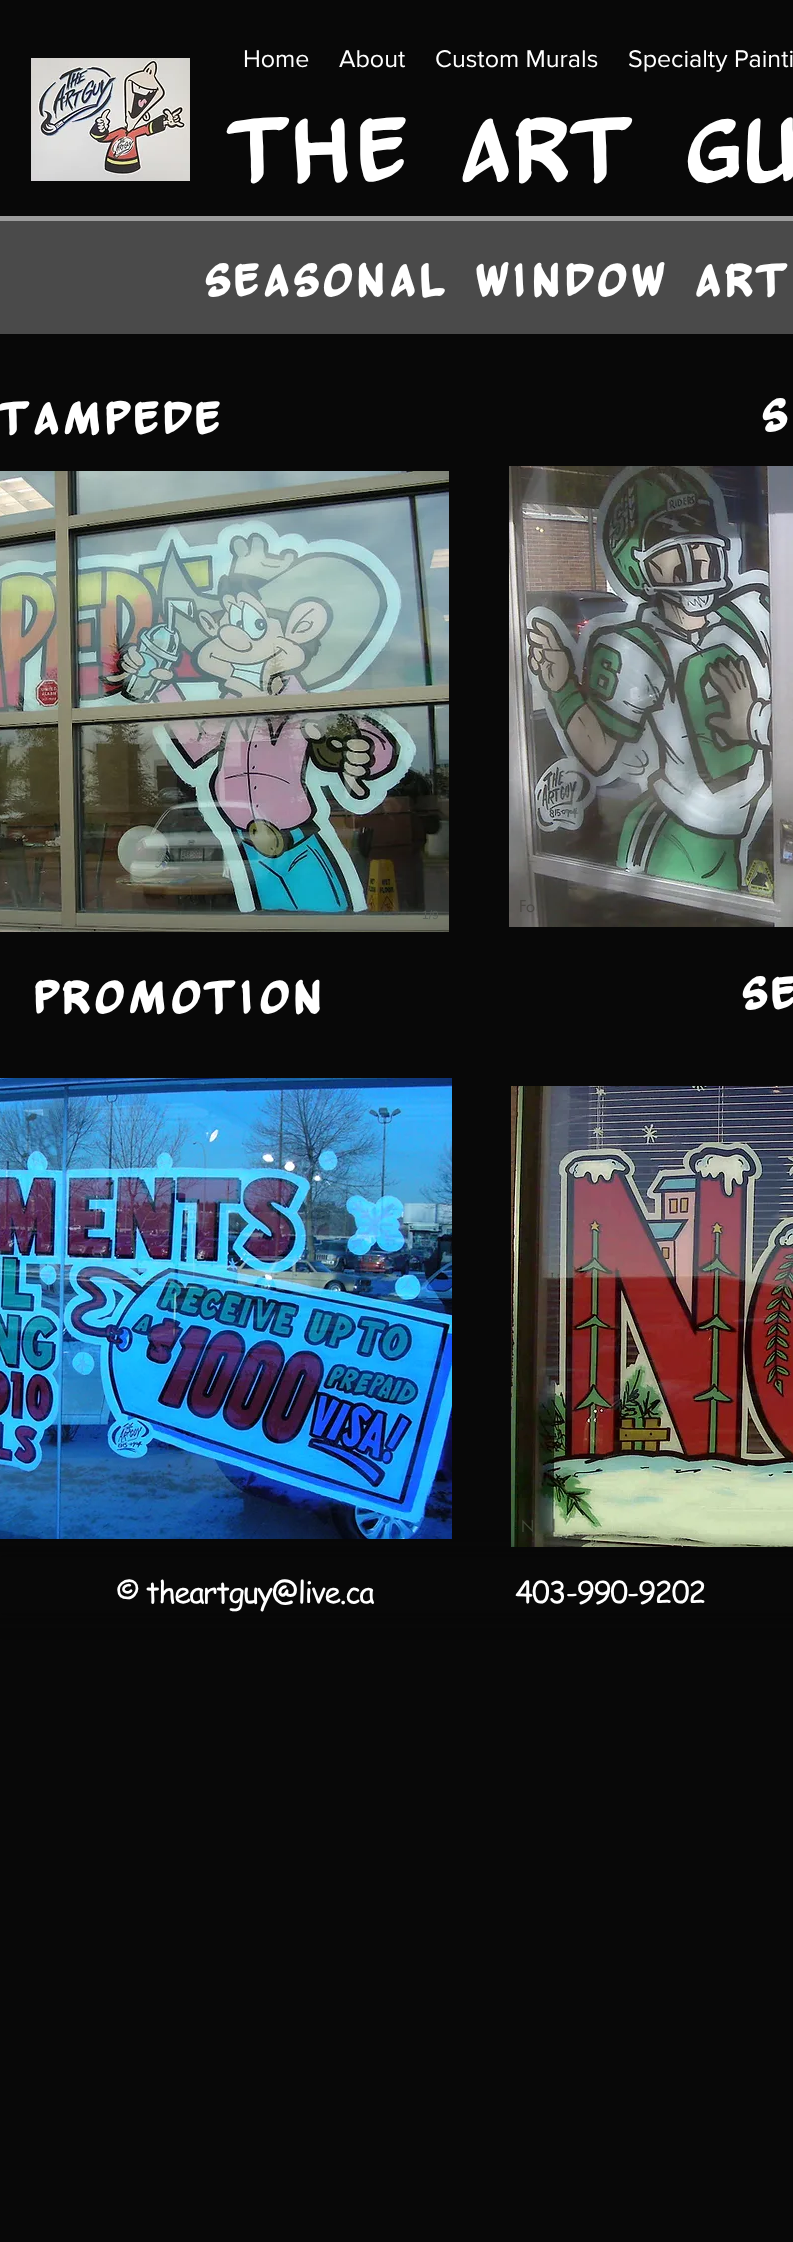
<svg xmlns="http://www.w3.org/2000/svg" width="793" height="2242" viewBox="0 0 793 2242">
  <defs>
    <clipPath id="clip1"><path d="M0 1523H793V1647H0ZM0 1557H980V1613H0Z" clip-rule="evenodd"/></clipPath>
  </defs>
  <rect width="100%" height="100%" fill="rgb(8,8,8)"/>
  <g font-family="'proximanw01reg'" font-size="25" fill="rgb(255,255,255)">
    <text x="243" y="67">Home</text>
    <text x="339" y="67">About</text>
    <text x="435" y="67">Custom Murals</text>
    <text x="628" y="67">Specialty Painti</text>
  </g>
  <image x="31" y="58" width="159" height="123" href="pic1.png"/>
  <text x="224" y="181" font-family="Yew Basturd" font-size="78" letter-spacing="-3.9" fill="rgb(255,255,255)">the art gu</text>
  <rect x="0" y="216" width="793" height="5" fill="rgb(156,156,156)"/>
  <rect x="0" y="221" width="793" height="113" fill="rgb(74,74,74)"/>
  <g font-family="Yew Basturd" font-size="40" font-weight="bold" fill="rgb(255,255,255)">
    <text x="202" y="296">Seasonal Window Art</text>
    <text x="-4" y="434">tampede</text>
    <text x="759" y="431">S</text>
  </g>
  <image x="509" y="466" width="284" height="461" href="pic2.png"/>
  <text x="519" y="912" font-family="futura" font-size="16" fill="rgb(75,73,68)">Fo</text>
  <image x="0" y="471" width="449" height="461" href="pic3.png"/>
  <text x="422" y="919" font-family="Liberation Sans" font-size="12" fill="rgb(87,93,85)">1/9</text>
  <g font-family="Yew Basturd" font-size="40" font-weight="bold" fill="rgb(255,255,255)">
    <text x="31" y="1013">promotion</text>
    <text x="739" y="1009">Se</text>
  </g>
  <image x="0" y="1078" width="452" height="461" href="pic4.png"/>
  <image x="511" y="1086" width="282" height="461" href="pic5.png"/>
  <g font-family="futura" font-size="16" fill="rgb(64,71,56)">
    <text x="521" y="1532">N</text>
    <text x="552" y="1532">l</text>
  </g>
  <g clip-path="url(#clip1)">
    <rect x="-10" y="1547" width="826" height="76" fill="rgba(8,8,8,0.3)" filter="blur(7.5px)"/>
  </g>
  <g font-family="'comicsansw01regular'" font-size="30" letter-spacing="-1.5" fill="rgb(255,255,255)">
    <text x="116" y="1603">© theartguy@live.ca</text>
    <text x="515" y="1603">403-990-9202</text>
  </g>
</svg>
